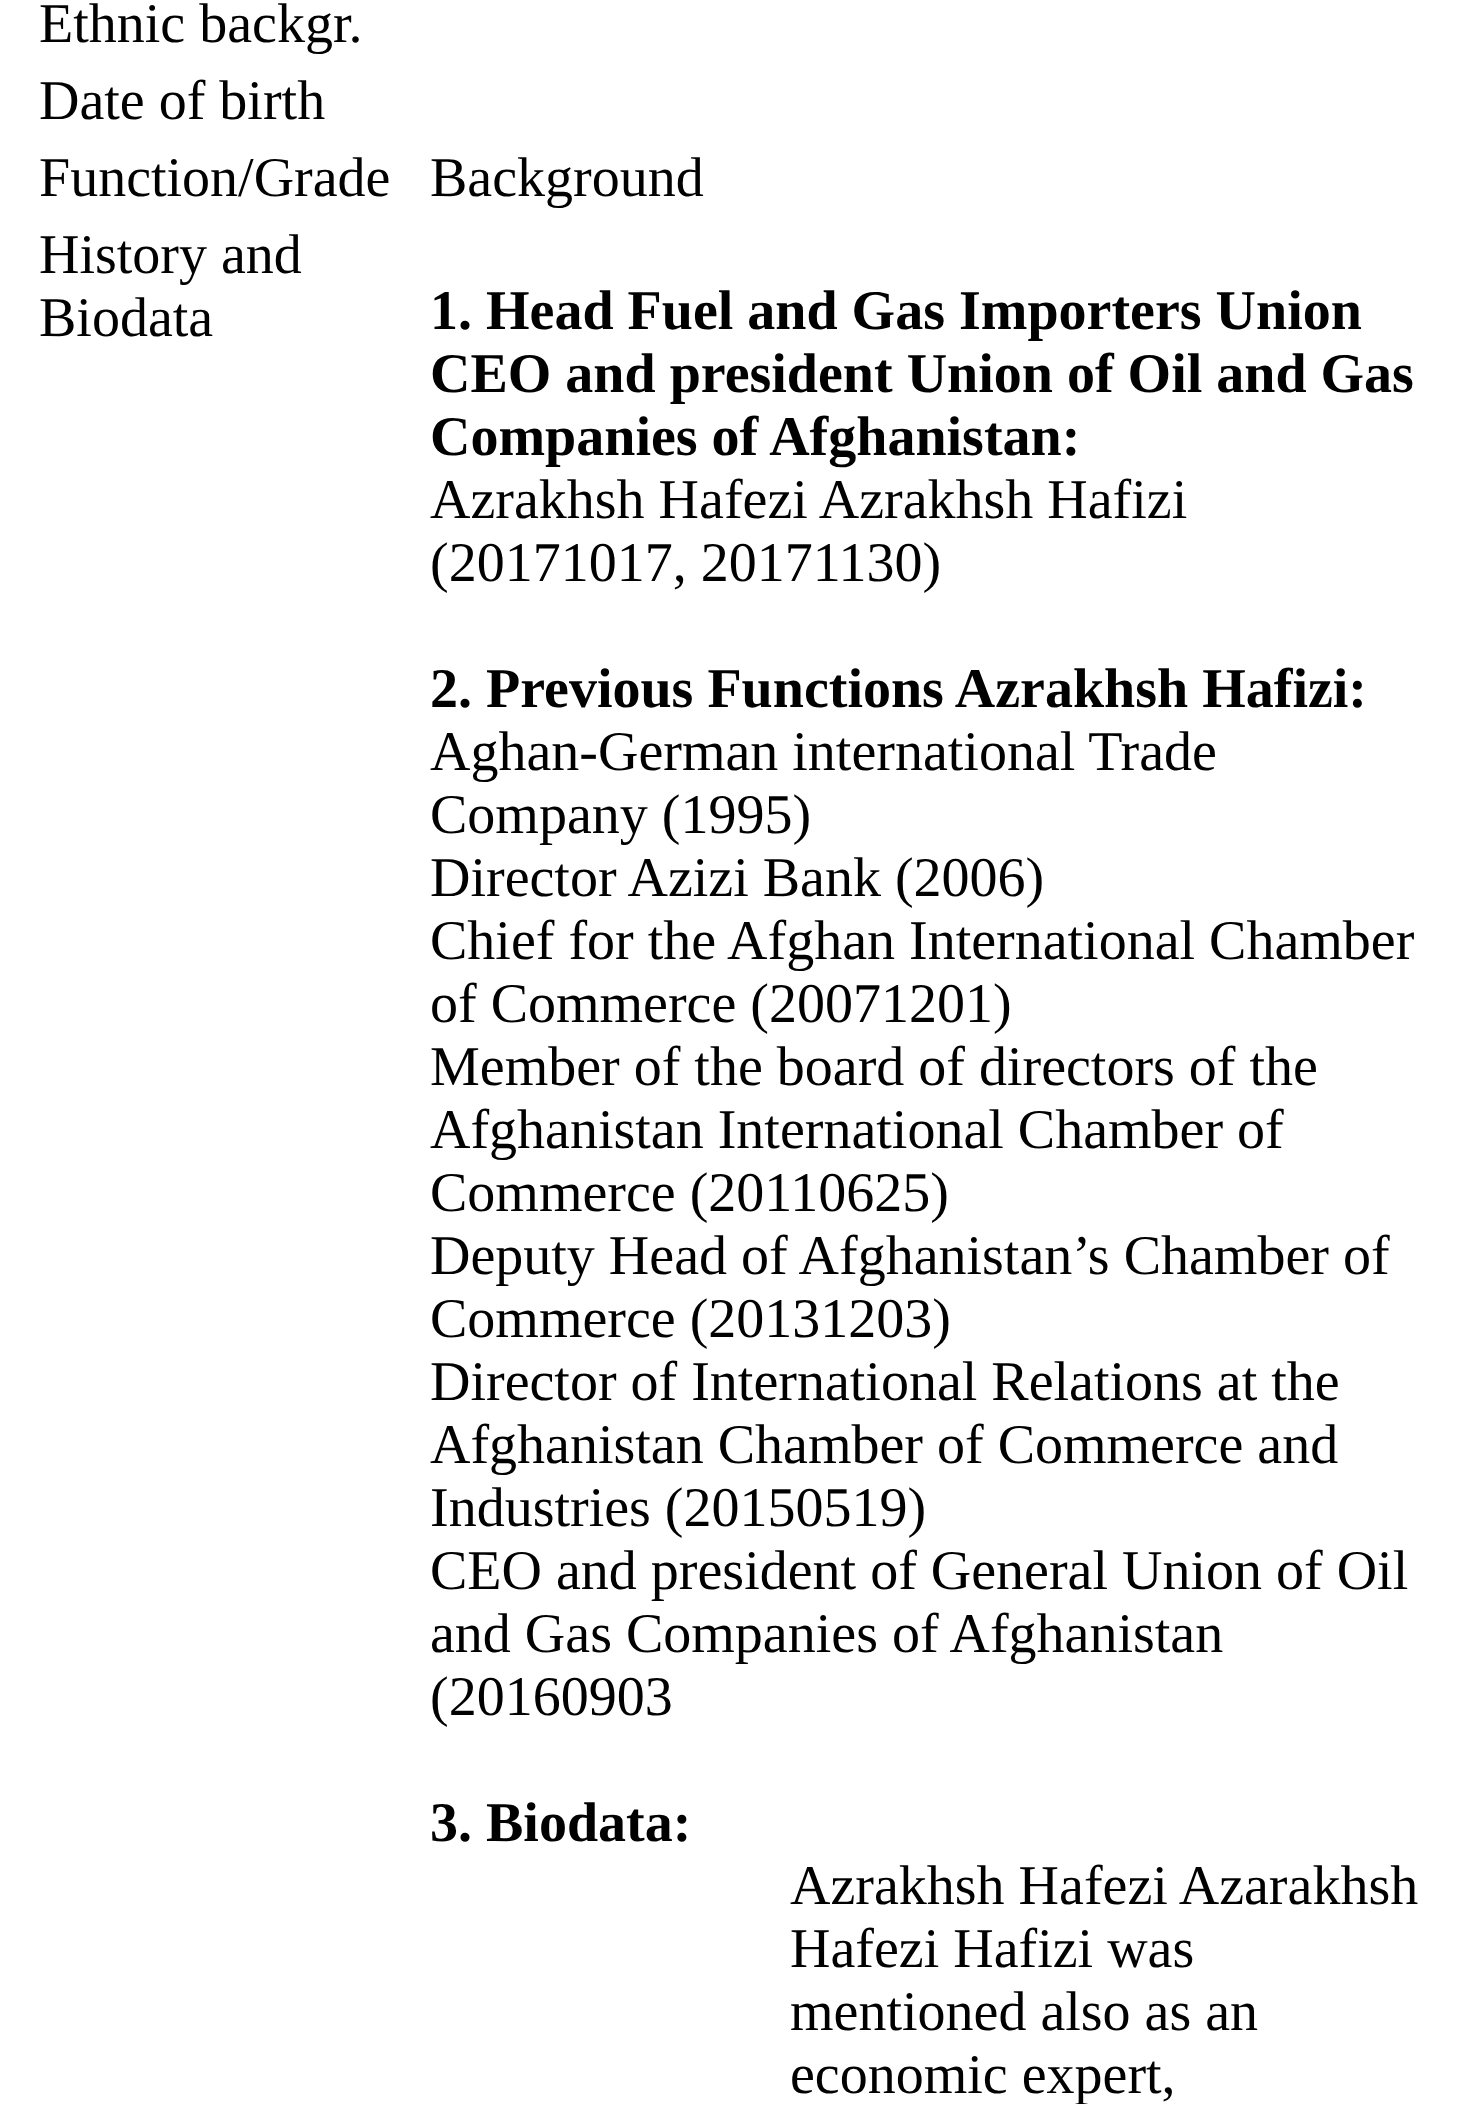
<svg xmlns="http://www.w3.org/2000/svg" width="1470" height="2104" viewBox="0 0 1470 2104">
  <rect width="100%" height="100%" fill="rgb(255,255,255)"/>
  <g font-family="Liberation Serif" font-size="56" fill="rgb(0,0,0)">
    <text>
      <tspan x="39" y="42">Ethnic backgr.</tspan>
      <tspan x="39" y="119">Date of birth</tspan>
      <tspan x="39" y="196">Function/Grade</tspan>
    </text>
    <text x="430" y="196">Background</text>
    <text>
      <tspan x="39" y="273">History and</tspan>
      <tspan x="39" y="336">Biodata</tspan>
    </text>
  </g>
  <g font-family="Liberation Serif" font-size="56" font-weight="bold" fill="rgb(0,0,0)">
    <text>
      <tspan x="430" y="329">1. Head Fuel and Gas Importers Union</tspan>
      <tspan x="430" y="392">CEO and president Union of Oil and Gas</tspan>
      <tspan x="430" y="455">Companies of Afghanistan:</tspan>
    </text>
  </g>
  <g font-family="Liberation Serif" font-size="56" fill="rgb(0,0,0)">
    <text>
      <tspan x="430" y="518">Azrakhsh Hafezi Azrakhsh Hafizi</tspan>
      <tspan x="430" y="581">(20171017, 20171130)</tspan>
    </text>
  </g>
  <text x="430" y="707" font-family="Liberation Serif" font-size="56" font-weight="bold" fill="rgb(0,0,0)">2. Previous Functions Azrakhsh Hafizi:</text>
  <g font-family="Liberation Serif" font-size="56" fill="rgb(0,0,0)">
    <text>
      <tspan x="430" y="770">Aghan-German international Trade</tspan>
      <tspan x="430" y="833">Company (1995)</tspan>
      <tspan x="430" y="896">Director Azizi Bank (2006)</tspan>
      <tspan x="430" y="959">Chief for the Afghan International Chamber</tspan>
      <tspan x="430" y="1022">of Commerce (20071201)</tspan>
      <tspan x="430" y="1085">Member of the board of directors of the</tspan>
      <tspan x="430" y="1148">Afghanistan International Chamber of</tspan>
      <tspan x="430" y="1211">Commerce (20110625)</tspan>
      <tspan x="430" y="1274">Deputy Head of Afghanistan’s Chamber of</tspan>
      <tspan x="430" y="1337">Commerce (20131203)</tspan>
      <tspan x="430" y="1400">Director of International Relations at the</tspan>
      <tspan x="430" y="1463">Afghanistan Chamber of Commerce and</tspan>
      <tspan x="430" y="1526">Industries (20150519)</tspan>
      <tspan x="430" y="1589">CEO and president of General Union of Oil</tspan>
      <tspan x="430" y="1652">and Gas Companies of Afghanistan</tspan>
      <tspan x="430" y="1715">(20160903</tspan>
    </text>
  </g>
  <text x="430" y="1841" font-family="Liberation Serif" font-size="56" font-weight="bold" fill="rgb(0,0,0)">3. Biodata:</text>
  <g font-family="Liberation Serif" font-size="56" fill="rgb(0,0,0)">
    <text>
      <tspan x="790" y="1904">Azrakhsh Hafezi Azarakhsh</tspan>
      <tspan x="790" y="1967">Hafezi Hafizi was</tspan>
      <tspan x="790" y="2030">mentioned also as an</tspan>
      <tspan x="790" y="2093">economic expert,</tspan>
    </text>
  </g>
</svg>
